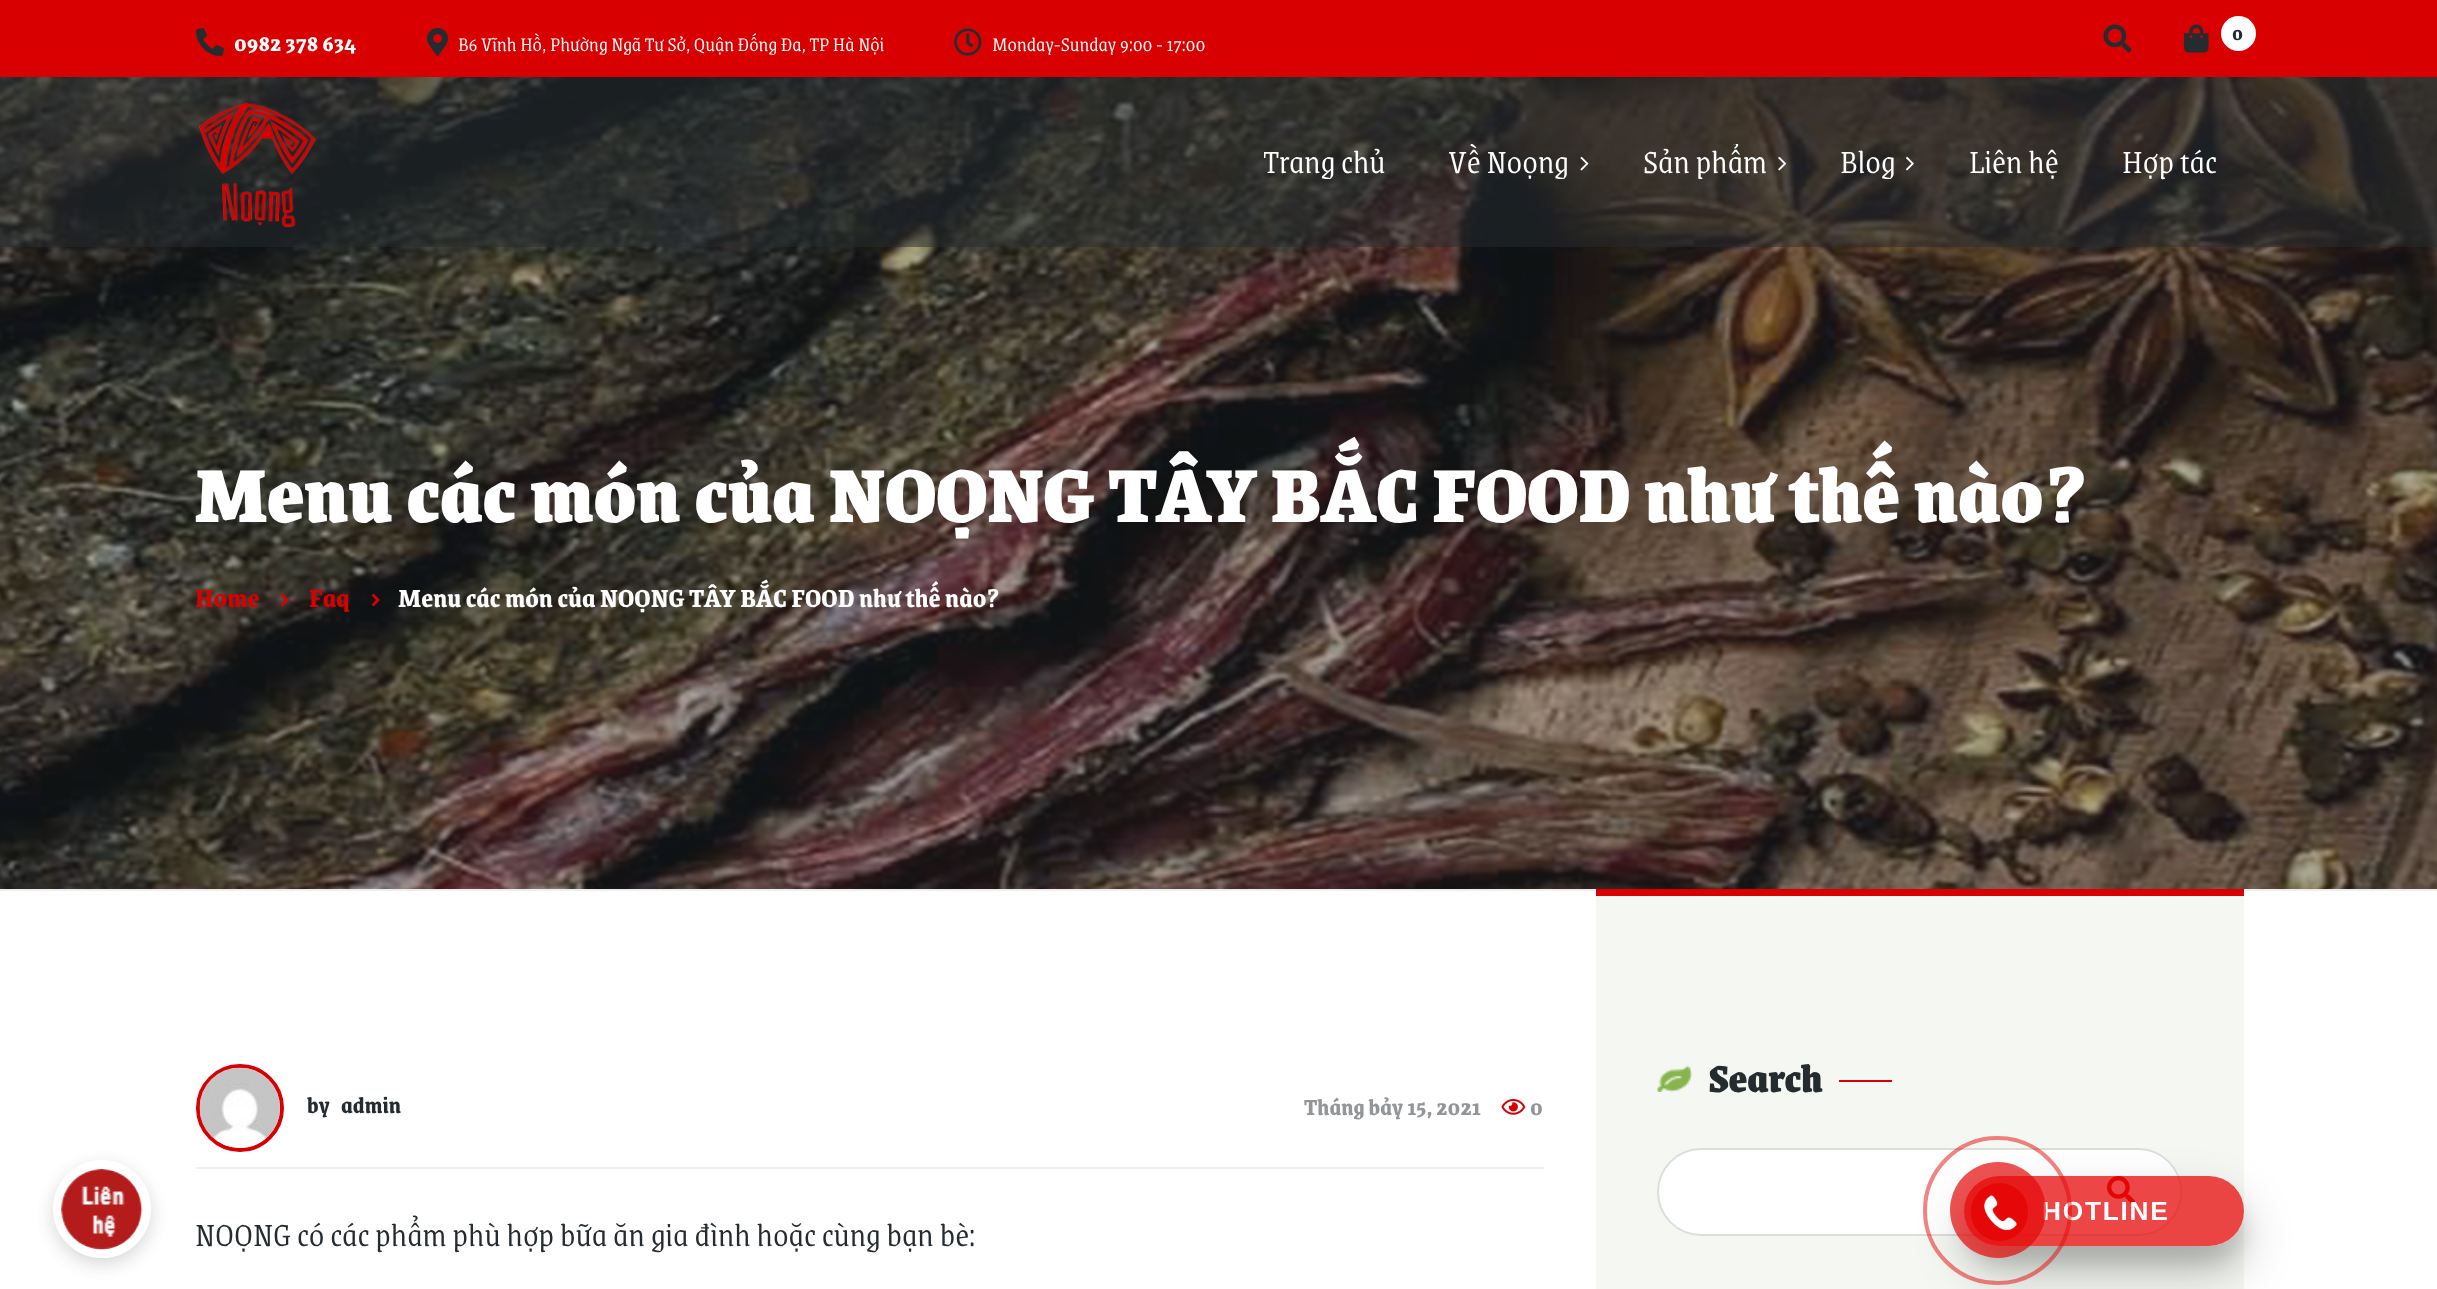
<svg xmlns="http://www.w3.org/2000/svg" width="2437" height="1289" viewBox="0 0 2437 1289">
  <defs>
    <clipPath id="clip1"><rect x="1264" y="144" width="122" height="35"/></clipPath>
    <clipPath id="clip2"><rect x="1449" y="144" width="121" height="35"/></clipPath>
    <clipPath id="clip3"><rect x="1643" y="144" width="125" height="35"/></clipPath>
    <clipPath id="clip4"><rect x="1841" y="144" width="54" height="35"/></clipPath>
    <clipPath id="clip5"><path d="M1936 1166H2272V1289H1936ZM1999 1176H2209C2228.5 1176 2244 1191.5 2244 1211C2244 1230.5 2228.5 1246 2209 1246H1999C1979.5 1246 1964 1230.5 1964 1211C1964 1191.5 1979.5 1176 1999 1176Z" clip-rule="evenodd"/></clipPath>
    <clipPath id="clip6"><path d="M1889 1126H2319V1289H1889ZM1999 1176H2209C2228.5 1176 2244 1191.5 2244 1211C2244 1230.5 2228.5 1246 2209 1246H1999C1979.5 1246 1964 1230.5 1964 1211C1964 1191.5 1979.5 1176 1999 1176Z" clip-rule="evenodd"/></clipPath>
  </defs>
  <rect width="100%" height="100%" fill="rgb(255,255,255)"/>
  <rect x="0" y="0" width="2437" height="77" fill="rgb(216,0,0)"/>
  <image x="196" y="28" width="28" height="28" href="pic1.png"/>
  <text x="234" y="51" font-family="Grenze" font-size="24.5" font-weight="bold" fill="rgb(255,255,255)">0982 378 634</text>
  <image x="427" y="28" width="21" height="28" href="pic2.png"/>
  <text x="458" y="51" font-family="Grenze" font-size="21" font-weight="300" fill="rgb(255,255,255)">B6 Vĩnh Hồ, Phường Ngã Tư Sở, Quận Đống Đa, TP Hà Nội</text>
  <image x="954" y="28" width="28" height="28" href="pic3.png"/>
  <text x="992" y="51" font-family="Grenze" font-size="21" font-weight="300" fill="rgb(255,255,255)">Monday-Sunday 9:00 - 17:00</text>
  <image x="2103" y="24" width="29" height="29" href="pic4.png"/>
  <image x="2184" y="24" width="25" height="29" href="pic5.png"/>
  <circle cx="2238.5" cy="33.5" r="17.5" fill="rgb(255,255,255)"/>
  <text x="2232" y="40" font-family="Grenze" font-size="21" font-weight="bold" fill="rgb(37,44,48)">0</text>
  <image x="0" y="77" width="2437" height="812" href="pic10.png"/>
  <rect x="0" y="77" width="2437" height="170" fill="rgba(37,44,48,0.5)"/>
  <image x="198" y="102" width="118" height="126" href="pic6.png"/>
  <g clip-path="url(#clip1)">
    <text x="1263" y="173" font-family="Grenze" font-size="35" font-weight="300" fill="rgb(255,255,255)">Trang chủ</text>
  </g>
  <g clip-path="url(#clip2)">
    <text x="1448" y="173" font-family="Grenze" font-size="35" font-weight="300" fill="rgb(255,255,255)">Về Noọng</text>
  </g>
  <image x="1580" y="156" width="9" height="15" href="pic7.png"/>
  <g clip-path="url(#clip3)">
    <text x="1643" y="173" font-family="Grenze" font-size="35" font-weight="300" fill="rgb(255,255,255)">Sản phẩm</text>
  </g>
  <image x="1778" y="156" width="9" height="15" href="pic8.png"/>
  <g clip-path="url(#clip4)">
    <text x="1840" y="173" font-family="Grenze" font-size="35" font-weight="300" fill="rgb(255,255,255)">Blog</text>
  </g>
  <image x="1906" y="156" width="8" height="15" href="pic9.png"/>
  <g font-family="Grenze" font-size="35" font-weight="300" fill="rgb(255,255,255)">
    <text x="1969" y="173">Liên hệ</text>
    <text x="2122" y="173">Hợp tác</text>
  </g>
  <rect x="0" y="889" width="2437" height="2" fill="rgb(238,238,238)"/>
  <text x="195" y="522" font-family="Grenze" font-size="84" font-weight="900" fill="rgb(255,255,255)">Menu các món của NOỌNG TÂY BẮC FOOD như thế nào?</text>
  <text x="195" y="607" font-family="Grenze" font-size="28" font-weight="bold" fill="rgb(216,0,0)">Home</text>
  <image x="280" y="593" width="9" height="14" href="pic11.png"/>
  <text x="309" y="607" font-family="Grenze" font-size="28" font-weight="bold" fill="rgb(216,0,0)">Faq</text>
  <image x="371" y="593" width="9" height="14" href="pic12.png"/>
  <text x="398" y="607" font-family="Grenze" font-size="28" font-weight="bold" fill="rgb(255,255,255)">Menu các món của NOỌNG TÂY BẮC FOOD như thế nào?</text>
  <rect x="53" y="1166" width="98" height="98" rx="49" fill="rgba(0,0,0,0.08)" filter="blur(9px)"/>
  <rect x="53" y="1166" width="98" height="98" rx="49" fill="rgba(0,0,0,0.08)" filter="blur(9px)"/>
  <circle cx="102" cy="1209" r="44.5" fill="rgb(255,255,255)" stroke="rgb(255,255,255)" stroke-width="9"/>
  <image x="61" y="1169" width="82" height="81" href="pic13.png"/>
  <rect x="1596" y="896" width="648" height="393" fill="rgb(245,248,242)"/>
  <rect x="1596" y="889" width="648" height="7" fill="rgb(216,0,0)"/>
  <image x="1657" y="1065" width="36" height="27" href="pic14.png"/>
  <text x="1709" y="1092" font-family="Grenze" font-size="42" font-weight="900" fill="rgb(37,44,48)">Search</text>
  <rect x="1839" y="1080" width="53" height="2" fill="rgb(216,0,0)"/>
  <rect x="1659" y="1150" width="522" height="84" rx="42" fill="rgb(255,255,255)"/>
  <rect x="1658" y="1149" width="523" height="86" rx="43" fill="none" stroke="rgba(0,0,0,0.1)" stroke-width="2"/>
  <image x="2107" y="1176" width="28" height="28" href="pic15.png"/>
  <rect x="196" y="1167" width="1348" height="2" fill="rgb(242,242,242)"/>
  <circle cx="240" cy="1108" r="42" fill="none" stroke="rgb(216,0,0)" stroke-width="4"/>
  <image x="199" y="1067" width="81" height="81" href="pic16.png"/>
  <g font-family="Grenze" font-size="24.5" font-weight="bold" fill="rgb(37,44,48)">
    <text x="307" y="1113">by</text>
    <text x="341" y="1113">admin</text>
  </g>
  <text x="1304" y="1115" font-family="Grenze" font-size="24.5" font-weight="bold" fill="rgb(146,150,152)">Tháng bảy 15, 2021</text>
  <image x="1501" y="1099" width="25" height="16" href="pic17.png"/>
  <text x="1530" y="1115" font-family="Grenze" font-size="24.5" font-weight="bold" fill="rgb(146,150,152)">0</text>
  <text x="195" y="1246" font-family="Grenze" font-size="35" font-weight="300" fill="rgb(37,44,48)">NOỌNG có các phẩm phù hợp bữa ăn gia đình hoặc cùng bạn bè:</text>
  <g clip-path="url(#clip5)">
    <rect x="1964" y="1194" width="280" height="70" rx="35" fill="rgba(0,0,0,0.1)" filter="blur(9px)"/>
  </g>
  <g clip-path="url(#clip6)">
    <rect x="1964" y="1201" width="280" height="70" rx="35" fill="rgba(0,0,0,0.25)" filter="blur(24.5px)"/>
  </g>
  <rect x="1964" y="1176" width="280" height="70" rx="35" fill="rgba(230,8,8,0.75)"/>
  <text x="2042" y="1220" font-family="Liberation Sans" font-size="26.25" font-weight="bold" letter-spacing="1.75" fill="rgb(255,255,255)">HOTLINE</text>
  <circle cx="1997.5" cy="1210.5" r="72.5" fill="none" stroke="rgba(230,8,8,0.5)" stroke-width="4"/>
  <circle cx="1998" cy="1210" r="48" fill="rgba(230,8,8,0.7)"/>
  <rect x="1971" y="1183" width="57" height="58" rx="28.5" fill="rgb(230,8,8)"/>
  <image x="1984" y="1195" width="33" height="36" href="pic18.png"/>
</svg>
